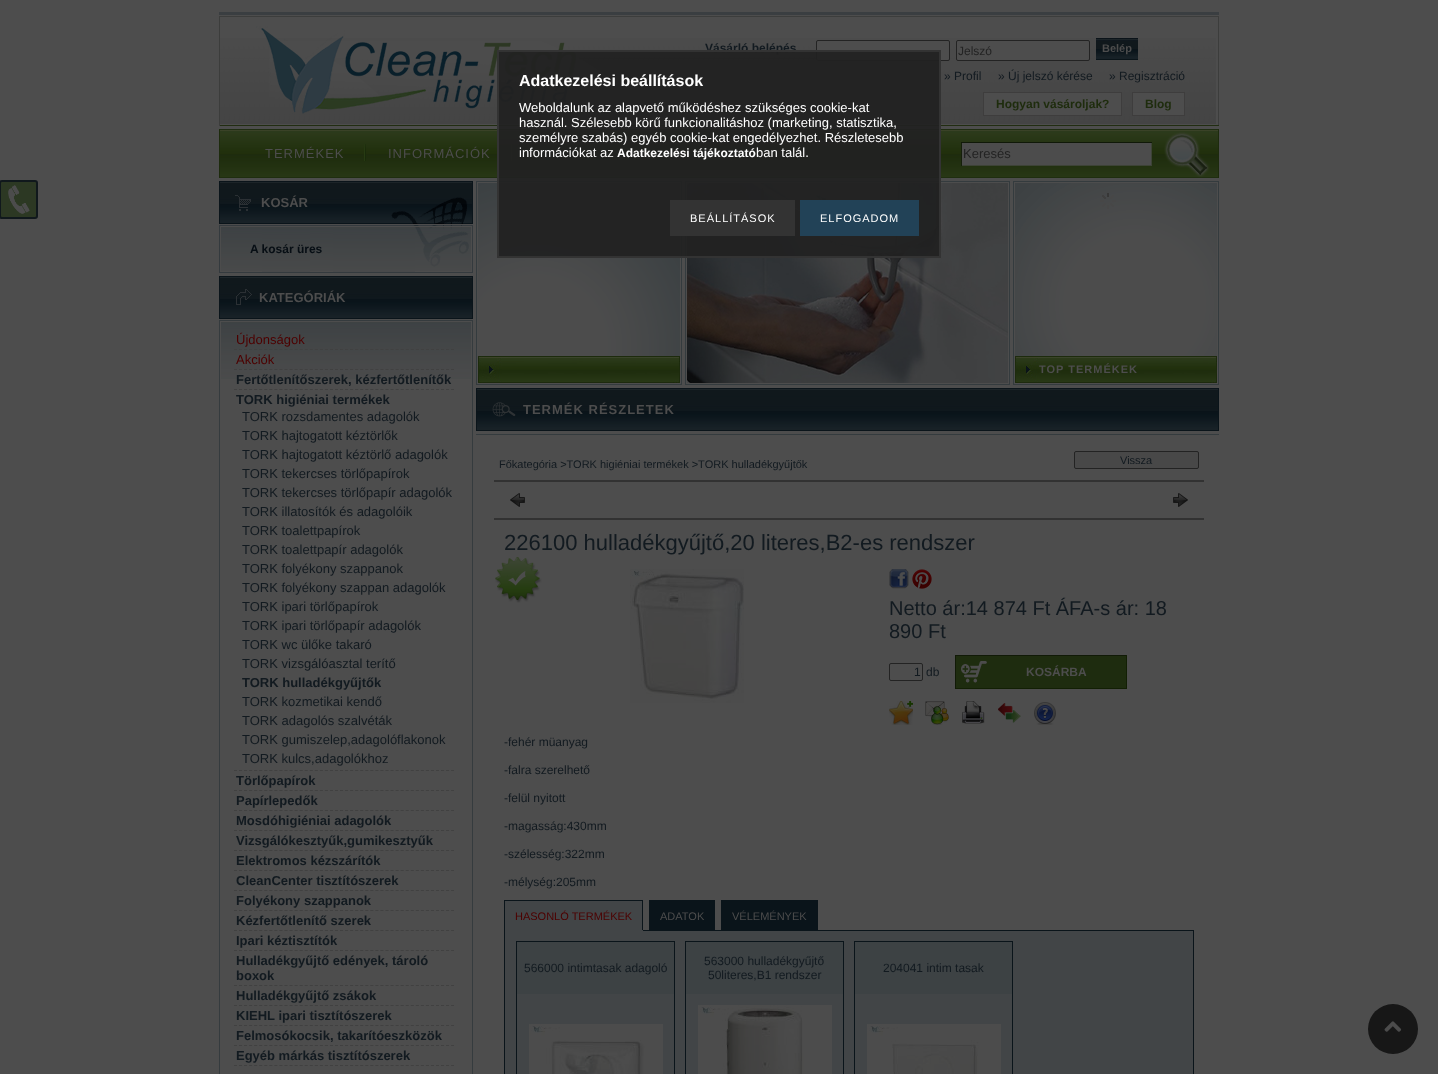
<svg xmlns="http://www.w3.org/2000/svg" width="1438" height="1074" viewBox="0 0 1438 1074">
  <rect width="100%" height="100%" fill="rgb(77,77,77)"/>
  <rect x="219" y="12" width="1000" height="3" fill="rgb(58,62,65)"/>
  <rect x="219" y="16" width="1000" height="1" fill="rgb(60,61,60)"/>
  <rect x="1218" y="16" width="1" height="110" fill="rgb(60,61,60)"/>
  <rect x="219" y="125" width="1000" height="1" fill="rgb(33,45,17)"/>
  <rect x="219" y="16" width="1" height="110" fill="rgb(60,61,60)"/>
  <image x="220" y="38" width="996" height="86" href="pic1.png"/>
  <image x="269" y="41" width="364" height="60" href="pic2.png"/>
  <image x="256" y="26" width="320" height="88" href="pic3.png"/>
  <text x="705" y="52" font-family="Liberation Sans" font-size="12" font-weight="bold" fill="rgb(18,26,32)">Vásárló belépés</text>
  <rect x="816.5" y="40.5" width="133" height="20" rx="1.5" fill="rgb(77,77,77)" stroke="rgb(35,35,35)"/>
  <rect x="956.5" y="40.5" width="133" height="20" rx="1.5" fill="rgb(77,77,77)" stroke="rgb(35,35,35)"/>
  <text x="958" y="55" font-family="Liberation Sans" font-size="12" fill="rgb(35,35,35)">Jelszó</text>
  <image x="1096" y="38" width="42" height="22" href="pic4.png"/>
  <text x="1102" y="52" font-family="Liberation Sans" font-size="11" font-weight="bold" fill="rgb(77,77,77)">Belép</text>
  <g font-family="Liberation Sans" font-size="12" fill="rgb(18,26,32)">
    <text x="944" y="80">» Profil</text>
    <text x="998" y="80">» Új jelszó kérése</text>
    <text x="1109" y="80">» Regisztráció</text>
  </g>
  <rect x="983.5" y="92.5" width="138" height="23" fill="rgb(77,77,77)" stroke="rgb(62,61,61)"/>
  <text x="996" y="108" font-family="Liberation Sans" font-size="12" font-weight="bold" fill="rgb(30,44,13)">Hogyan vásároljak?</text>
  <rect x="1132.5" y="92.5" width="52" height="23" fill="rgb(77,77,77)" stroke="rgb(62,61,61)"/>
  <text x="1145" y="108" font-family="Liberation Sans" font-size="12" font-weight="bold" fill="rgb(30,44,13)">Blog</text>
  <image x="219" y="129" width="1000" height="49" href="pic5.png"/>
  <text x="265" y="158" font-family="Liberation Sans" font-size="13" letter-spacing="1" fill="rgb(77,77,77)">TERMÉKEK</text>
  <image x="364" y="144" width="2" height="17" href="pic6.png"/>
  <text x="388" y="158" font-family="Liberation Sans" font-size="13" letter-spacing="1" fill="rgb(77,77,77)">INFORMÁCIÓK</text>
  <image x="511" y="144" width="2" height="17" href="pic6.png"/>
  <image x="731" y="144" width="2" height="17" href="pic6.png"/>
  <text x="963" y="158" font-family="Liberation Sans" font-size="13" fill="rgb(35,35,35)">Keresés</text>
  <image x="219" y="181" width="254" height="92" href="pic7.png"/>
  <text x="261" y="207" font-family="Liberation Sans" font-size="13" font-weight="bold" fill="rgb(77,77,77)">KOSÁR</text>
  <text x="250" y="253" font-family="Liberation Sans" font-size="12" font-weight="bold" fill="rgb(7,14,20)">A kosár üres</text>
  <image x="219" y="276" width="254" height="43" href="pic8.png"/>
  <text x="259" y="302" font-family="Liberation Sans" font-size="13" font-weight="bold" fill="rgb(77,77,77)">KATEGÓRIÁK</text>
  <rect x="219.5" y="320.5" width="253" height="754" fill="none" stroke="rgb(53,59,62)"/>
  <image x="221" y="322" width="250" height="57" href="pic9.png"/>
  <path d="M234 349.5H454" fill="none" stroke="rgb(65,65,65)" stroke-dasharray="3 2.05"/>
  <text x="236" y="344" font-family="Liberation Sans" font-size="13" fill="rgb(77,0,0)">Újdonságok</text>
  <path d="M234 369.5H454" fill="none" stroke="rgb(65,65,65)" stroke-dasharray="3 2.05"/>
  <text x="236" y="364" font-family="Liberation Sans" font-size="13" fill="rgb(77,0,0)">Akciók</text>
  <path d="M234 389.5H454" fill="none" stroke="rgb(65,65,65)" stroke-dasharray="3 2.05"/>
  <text x="236" y="384" font-family="Liberation Sans" font-size="13" font-weight="bold" fill="rgb(18,26,32)">Fertőtlenítőszerek, kézfertőtlenítők</text>
  <path d="M234 770.5H454" fill="none" stroke="rgb(65,65,65)" stroke-dasharray="3 2.05"/>
  <text x="236" y="404" font-family="Liberation Sans" font-size="13" font-weight="bold" fill="rgb(18,26,32)">TORK higiéniai termékek</text>
  <g font-family="Liberation Sans" font-size="13" fill="rgb(18,26,32)">
    <text>
      <tspan x="242" y="421">TORK rozsdamentes adagolók</tspan>
      <tspan x="242" y="440">TORK hajtogatott kéztörlők</tspan>
      <tspan x="242" y="459">TORK hajtogatott kéztörlő adagolók</tspan>
      <tspan x="242" y="478">TORK tekercses törlőpapírok</tspan>
      <tspan x="242" y="497">TORK tekercses törlőpapír adagolók</tspan>
      <tspan x="242" y="516">TORK illatosítók és adagolóik</tspan>
      <tspan x="242" y="535">TORK toalettpapírok</tspan>
      <tspan x="242" y="554">TORK toalettpapír adagolók</tspan>
      <tspan x="242" y="573">TORK folyékony szappanok</tspan>
      <tspan x="242" y="592">TORK folyékony szappan adagolók</tspan>
      <tspan x="242" y="611">TORK ipari törlőpapírok</tspan>
      <tspan x="242" y="630">TORK ipari törlőpapír adagolók</tspan>
      <tspan x="242" y="649">TORK wc ülőke takaró</tspan>
      <tspan x="242" y="668">TORK vizsgálóasztal terítő</tspan>
    </text>
  </g>
  <text x="242" y="687" font-family="Liberation Sans" font-size="13" font-weight="bold" fill="rgb(18,26,32)">TORK hulladékgyűjtők</text>
  <g font-family="Liberation Sans" font-size="13" fill="rgb(18,26,32)">
    <text>
      <tspan x="242" y="706">TORK kozmetikai kendő</tspan>
      <tspan x="242" y="725">TORK adagolós szalvéták</tspan>
      <tspan x="242" y="744">TORK gumiszelep,adagolóflakonok</tspan>
      <tspan x="242" y="763">TORK kulcs,adagolókhoz</tspan>
    </text>
  </g>
  <path d="M234 790.5H454" fill="none" stroke="rgb(65,65,65)" stroke-dasharray="3 2.05"/>
  <text x="236" y="785" font-family="Liberation Sans" font-size="13" font-weight="bold" fill="rgb(18,26,32)">Törlőpapírok</text>
  <path d="M234 810.5H454" fill="none" stroke="rgb(65,65,65)" stroke-dasharray="3 2.05"/>
  <text x="236" y="805" font-family="Liberation Sans" font-size="13" font-weight="bold" fill="rgb(18,26,32)">Papírlepedők</text>
  <path d="M234 830.5H454" fill="none" stroke="rgb(65,65,65)" stroke-dasharray="3 2.05"/>
  <text x="236" y="825" font-family="Liberation Sans" font-size="13" font-weight="bold" fill="rgb(18,26,32)">Mosdóhigiéniai adagolók</text>
  <path d="M234 850.5H454" fill="none" stroke="rgb(65,65,65)" stroke-dasharray="3 2.05"/>
  <text x="236" y="845" font-family="Liberation Sans" font-size="13" font-weight="bold" fill="rgb(18,26,32)">Vizsgálókesztyűk,gumikesztyűk</text>
  <path d="M234 870.5H454" fill="none" stroke="rgb(65,65,65)" stroke-dasharray="3 2.05"/>
  <text x="236" y="865" font-family="Liberation Sans" font-size="13" font-weight="bold" fill="rgb(18,26,32)">Elektromos kézszárítók</text>
  <path d="M234 890.5H454" fill="none" stroke="rgb(65,65,65)" stroke-dasharray="3 2.05"/>
  <text x="236" y="885" font-family="Liberation Sans" font-size="13" font-weight="bold" fill="rgb(18,26,32)">CleanCenter tisztítószerek</text>
  <path d="M234 910.5H454" fill="none" stroke="rgb(65,65,65)" stroke-dasharray="3 2.05"/>
  <text x="236" y="905" font-family="Liberation Sans" font-size="13" font-weight="bold" fill="rgb(18,26,32)">Folyékony szappanok</text>
  <path d="M234 930.5H454" fill="none" stroke="rgb(65,65,65)" stroke-dasharray="3 2.05"/>
  <text x="236" y="925" font-family="Liberation Sans" font-size="13" font-weight="bold" fill="rgb(18,26,32)">Kézfertőtlenítő szerek</text>
  <path d="M234 950.5H454" fill="none" stroke="rgb(65,65,65)" stroke-dasharray="3 2.05"/>
  <text x="236" y="945" font-family="Liberation Sans" font-size="13" font-weight="bold" fill="rgb(18,26,32)">Ipari kéztisztítók</text>
  <path d="M234 985.5H454" fill="none" stroke="rgb(65,65,65)" stroke-dasharray="3 2.05"/>
  <g font-family="Liberation Sans" font-size="13" font-weight="bold" fill="rgb(18,26,32)">
    <text>
      <tspan x="236" y="965">Hulladékgyűjtő edények, tároló</tspan>
      <tspan x="236" y="980">boxok</tspan>
    </text>
  </g>
  <path d="M234 1005.5H454" fill="none" stroke="rgb(65,65,65)" stroke-dasharray="3 2.05"/>
  <text x="236" y="1000" font-family="Liberation Sans" font-size="13" font-weight="bold" fill="rgb(18,26,32)">Hulladékgyűjtő zsákok</text>
  <path d="M234 1025.5H454" fill="none" stroke="rgb(65,65,65)" stroke-dasharray="3 2.05"/>
  <text x="236" y="1020" font-family="Liberation Sans" font-size="13" font-weight="bold" fill="rgb(18,26,32)">KIEHL ipari tisztítószerek</text>
  <path d="M234 1045.5H454" fill="none" stroke="rgb(65,65,65)" stroke-dasharray="3 2.05"/>
  <text x="236" y="1040" font-family="Liberation Sans" font-size="13" font-weight="bold" fill="rgb(18,26,32)">Felmosókocsik, takarítóeszközök</text>
  <path d="M234 1065.5H454" fill="none" stroke="rgb(65,65,65)" stroke-dasharray="3 2.05"/>
  <text x="236" y="1060" font-family="Liberation Sans" font-size="13" font-weight="bold" fill="rgb(18,26,32)">Egyéb márkás tisztítószerek</text>
  <circle cx="1393" cy="1029" r="25" fill="rgb(23,23,23)"/>
  <image x="1384" y="1021" width="18" height="11" href="pic10.png"/>
  <rect x="476.5" y="181.5" width="205" height="203" fill="none" stroke="rgb(52,59,62)"/>
  <image x="478" y="183" width="202" height="200" href="pic11.png"/>
  <image x="563" y="193" width="16" height="16" href="pic12.png"/>
  <rect x="685.5" y="181.5" width="324" height="203" fill="none" stroke="rgb(52,59,62)"/>
  <image x="687" y="183" width="321" height="200" href="pic13.png"/>
  <rect x="1013.5" y="181.5" width="205" height="203" fill="none" stroke="rgb(52,59,62)"/>
  <image x="1015" y="183" width="202" height="200" href="pic14.png"/>
  <image x="1100" y="193" width="16" height="16" href="pic15.png"/>
  <text x="1039" y="373" font-family="Liberation Sans" font-size="11" font-weight="bold" letter-spacing="1" fill="rgb(77,77,77)">TOP TERMÉKEK</text>
  <image x="476" y="388" width="743" height="43" href="pic16.png"/>
  <text x="523" y="414" font-family="Liberation Sans" font-size="13" font-weight="bold" letter-spacing="1" fill="rgb(77,77,77)">TERMÉK RÉSZLETEK</text>
  <rect x="476" y="434" width="743" height="1" fill="rgb(52,59,62)"/>
  <text x="499" y="468" font-family="Liberation Sans" font-size="11" fill="rgb(18,26,32)">Főkategória &gt;TORK higiéniai termékek &gt;TORK hulladékgyűjtők</text>
  <rect x="1074.5" y="451.5" width="124" height="17" rx="1.5" fill="rgb(72,72,72)" stroke="rgb(35,35,35)"/>
  <text x="1120" y="464" font-family="Liberation Sans" font-size="11" fill="rgb(18,26,32)">Vissza</text>
  <rect x="494" y="480" width="710" height="2" fill="rgb(50,50,50)"/>
  <image x="510" y="493" width="15" height="14" href="pic17.png"/>
  <image x="1173" y="493" width="15" height="14" href="pic18.png"/>
  <rect x="494" y="518" width="710" height="2" fill="rgb(50,50,50)"/>
  <text x="504" y="550" font-family="Liberation Sans" font-size="22" fill="rgb(18,26,32)">226100 hulladékgyűjtő,20 literes,B2-es rendszer</text>
  <image x="495" y="557" width="47" height="46" href="pic19.png"/>
  <image x="630" y="569" width="114" height="134" href="pic20.png"/>
  <image x="889" y="569" width="20" height="20" href="pic21.png"/>
  <image x="912" y="569" width="20" height="20" href="pic22.png"/>
  <g font-family="Liberation Sans" font-size="20" fill="rgb(18,26,32)">
    <text>
      <tspan x="889" y="615">Netto ár:14 874 Ft ÁFA-s ár: 18</tspan>
      <tspan x="889" y="638">890 Ft</tspan>
    </text>
  </g>
  <rect x="889.5" y="663.5" width="33" height="17" rx="1.5" fill="none" stroke="rgb(35,35,35)"/>
  <g font-family="Liberation Sans" font-size="12" fill="rgb(18,26,32)">
    <text x="914" y="676">1</text>
    <text x="926" y="676">db</text>
  </g>
  <rect x="956" y="656" width="170" height="32" fill="rgb(30,44,15)"/>
  <image x="961" y="661" width="26" height="22" href="pic23.png"/>
  <rect x="955" y="655" width="172" height="1" fill="rgb(17,26,7)"/>
  <rect x="1126" y="655" width="1" height="34" fill="rgb(18,31,4)"/>
  <rect x="955" y="688" width="172" height="1" fill="rgb(18,31,4)"/>
  <rect x="955" y="655" width="1" height="34" fill="rgb(17,26,7)"/>
  <text x="1026" y="676" font-family="Liberation Sans" font-size="12" font-weight="bold" fill="rgb(77,77,77)">KOSÁRBA</text>
  <image x="889" y="701" width="24" height="24" href="pic24.png"/>
  <image x="925" y="701" width="24" height="24" href="pic25.png"/>
  <image x="962" y="701" width="23" height="23" href="pic26.png"/>
  <image x="998" y="703" width="23" height="20" href="pic27.png"/>
  <image x="1034" y="702" width="22" height="23" href="pic28.png"/>
  <g font-family="Liberation Sans" font-size="12" fill="rgb(18,26,32)">
    <text x="504" y="746">-fehér müanyag</text>
    <text x="504" y="774">-falra szerelhető</text>
    <text x="504" y="802">-felül nyitott</text>
    <text x="504" y="830">-magasság:430mm</text>
    <text x="504" y="858">-szélesség:322mm</text>
    <text x="504" y="886">-mélység:205mm</text>
  </g>
  <rect x="505" y="901" width="137" height="29" fill="rgb(66,69,71)"/>
  <rect x="504" y="900" width="139" height="1" fill="rgb(10,20,26)"/>
  <rect x="504.5" y="930.5" width="689" height="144" fill="rgb(66,69,71)" stroke="rgb(10,20,26)"/>
  <rect x="642" y="900" width="1" height="31" fill="rgb(10,20,26)"/>
  <rect x="504" y="930" width="139" height="1" fill="rgb(66,69,71)"/>
  <rect x="504" y="900" width="1" height="31" fill="rgb(10,20,26)"/>
  <text x="515" y="920" font-family="Liberation Sans" font-size="11" fill="rgb(77,0,0)">HASONLÓ TERMÉKEK</text>
  <rect x="649.5" y="900.5" width="65" height="30" fill="rgb(10,20,26)" stroke="rgb(10,20,26)"/>
  <text x="660" y="920" font-family="Liberation Sans" font-size="11" fill="rgb(77,77,77)">ADATOK</text>
  <rect x="721.5" y="900.5" width="96" height="30" fill="rgb(10,20,26)" stroke="rgb(10,20,26)"/>
  <text x="732" y="920" font-family="Liberation Sans" font-size="11" fill="rgb(77,77,77)">VÉLEMÉNYEK</text>
  <rect x="516.5" y="941.5" width="158" height="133" fill="none" stroke="rgb(10,20,26)"/>
  <rect x="517" y="942" width="157" height="52" fill="rgb(61,66,68)"/>
  <text x="524" y="972" font-family="Liberation Sans" font-size="12" fill="rgb(18,26,32)">566000 intimtasak adagoló</text>
  <image x="529" y="1024" width="134" height="50" href="pic29.png"/>
  <rect x="685.5" y="941.5" width="158" height="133" fill="none" stroke="rgb(10,20,26)"/>
  <rect x="686" y="942" width="157" height="52" fill="rgb(61,66,68)"/>
  <g font-family="Liberation Sans" font-size="12" fill="rgb(18,26,32)">
    <text x="704" y="965">563000 hulladékgyűjtő</text>
    <text x="708" y="979">50literes,B1 rendszer</text>
  </g>
  <image x="698" y="1005" width="134" height="69" href="pic30.png"/>
  <rect x="854.5" y="941.5" width="158" height="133" fill="none" stroke="rgb(10,20,26)"/>
  <rect x="855" y="942" width="157" height="52" fill="rgb(61,66,68)"/>
  <text x="883" y="972" font-family="Liberation Sans" font-size="12" fill="rgb(18,26,32)">204041 intim tasak</text>
  <image x="867" y="1024" width="134" height="50" href="pic31.png"/>
  <rect x="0" y="181" width="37" height="37" rx="2" fill="rgb(44,56,35)" stroke="rgb(16,24,28)" stroke-width="2"/>
  <image x="8" y="185" width="22" height="29" href="pic32.png"/>
  <rect x="498" y="51" width="442" height="206" fill="rgba(34,34,34,0.95)" stroke="rgb(51,51,51)" stroke-width="2"/>
  <text x="519" y="86" font-family="Liberation Sans" font-size="16" font-weight="bold" fill="rgb(255,255,255)">Adatkezelési beállítások</text>
  <g font-family="Liberation Sans" font-size="13" fill="rgb(255,255,255)">
    <text>
      <tspan x="519" y="112">Weboldalunk az alapvető működéshez szükséges cookie-kat</tspan>
      <tspan x="519" y="127">használ. Szélesebb körű funkcionalitáshoz (marketing, statisztika,</tspan>
      <tspan x="519" y="142">személyre szabás) egyéb cookie-kat engedélyezhet. Részletesebb</tspan>
      <tspan x="519" y="157">információkat az</tspan>
    </text>
  </g>
  <text x="617" y="157" font-family="Liberation Sans" font-size="12" font-weight="bold" fill="rgb(255,255,255)">Adatkezelési tájékoztató</text>
  <text x="756" y="157" font-family="Liberation Sans" font-size="13" fill="rgb(255,255,255)">ban talál.</text>
  <rect x="670" y="200" width="125" height="36" fill="rgb(51,51,51)"/>
  <text x="690" y="222" font-family="Liberation Sans" font-size="11" letter-spacing="1" fill="rgb(255,255,255)">BEÁLLÍTÁSOK</text>
  <rect x="800" y="200" width="119" height="36" fill="rgb(34,66,87)"/>
  <text x="820" y="222" font-family="Liberation Sans" font-size="11" letter-spacing="1" fill="rgb(255,255,255)">ELFOGADOM</text>
</svg>
